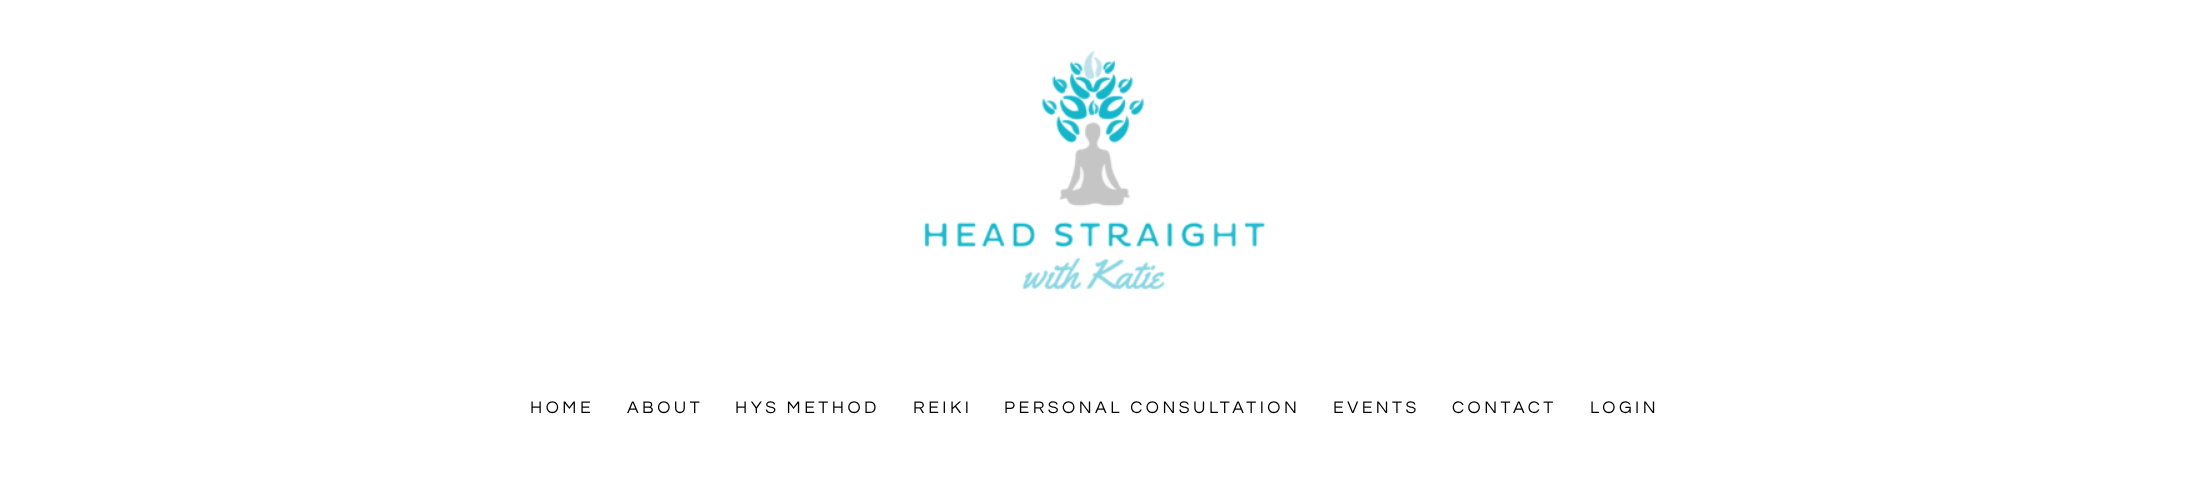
<svg xmlns="http://www.w3.org/2000/svg" width="2188" height="496" viewBox="0 0 2188 496">
  <rect width="100%" height="100%" fill="rgb(255,255,255)"/>
  <image x="923" y="50" width="343" height="240" href="pic1.png"/>
  <g font-family="Questrial" font-size="17.5" letter-spacing="3.5" fill="rgb(0,0,0)">
    <text x="530" y="413">HOME</text>
    <text x="627" y="413">ABOUT</text>
    <text x="735" y="413">HYS METHOD</text>
    <text x="913" y="413">REIKI</text>
    <text x="1004" y="413">PERSONAL CONSULTATION</text>
    <text x="1333" y="413">EVENTS</text>
    <text x="1452" y="413">CONTACT</text>
    <text x="1590" y="413">LOGIN</text>
  </g>
</svg>
